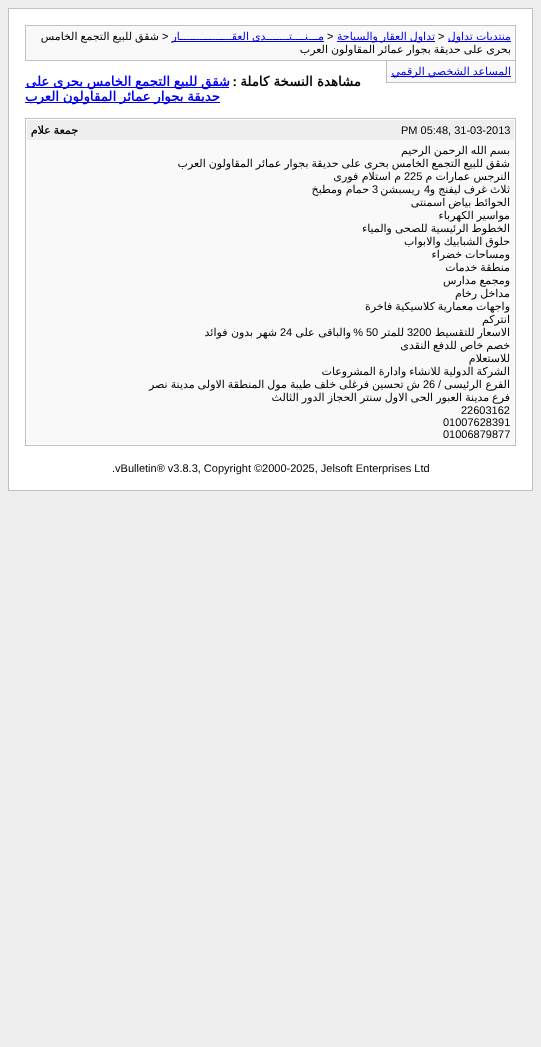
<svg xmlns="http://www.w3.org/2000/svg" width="541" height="1047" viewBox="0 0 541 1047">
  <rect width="100%" height="100%" fill="rgb(238,238,238)"/>
  <rect x="8.5" y="8.5" width="524" height="482" fill="rgb(255,255,255)" stroke="rgb(192,192,192)"/>
  <rect x="25.5" y="25.5" width="490" height="35" fill="rgb(249,249,249)" stroke="rgb(192,192,192)"/>
  <rect x="448" y="41" width="63" height="1" fill="rgb(0,0,238)"/>
  <text x="511" y="40" word-spacing="-0.5" font-family="DejaVu Sans" font-size="11" direction="rtl" fill="rgb(0,0,238)">منتديات تداول</text>
  <text x="438" y="40" font-family="Liberation Sans" font-size="11" fill="rgb(0,0,0)">&gt;</text>
  <rect x="337" y="41" width="98" height="1" fill="rgb(0,0,238)"/>
  <text x="435" y="40" word-spacing="-0.5" font-family="DejaVu Sans" font-size="11" direction="rtl" fill="rgb(0,0,238)">تداول العقار والسياحة</text>
  <text x="327" y="40" font-family="Liberation Sans" font-size="11" fill="rgb(0,0,0)">&gt;</text>
  <rect x="172" y="41" width="152" height="1" fill="rgb(0,0,238)"/>
  <text x="324" y="40" word-spacing="-0.5" font-family="DejaVu Sans" font-size="11" direction="rtl" fill="rgb(0,0,238)">مـــنــــتـــــــدى العقــــــــــــــــار</text>
  <text x="162" y="40" font-family="Liberation Sans" font-size="11" fill="rgb(0,0,0)">&gt;</text>
  <g font-family="DejaVu Sans" font-size="11" direction="rtl" fill="rgb(0,0,0)">
    <text x="159" y="40" word-spacing="-0.5">شقق للبيع التجمع الخامس</text>
    <text x="511" y="53" word-spacing="-0.5">بحرى على حديقة بجوار عمائر المقاولون العرب</text>
  </g>
  <rect x="387" y="61" width="128" height="21" fill="rgb(249,249,249)"/>
  <rect x="515" y="61" width="1" height="22" fill="rgb(192,192,192)"/>
  <rect x="386" y="82" width="130" height="1" fill="rgb(192,192,192)"/>
  <rect x="386" y="61" width="1" height="22" fill="rgb(192,192,192)"/>
  <rect x="391" y="76" width="120" height="1" fill="rgb(0,0,238)"/>
  <text x="511" y="75" word-spacing="-0.5" font-family="DejaVu Sans" font-size="11" direction="rtl" fill="rgb(0,0,238)">المساعد الشخصي الرقمي</text>
  <text x="361" y="86" font-family="DejaVu Sans" font-size="13.3" font-weight="bold" direction="rtl" fill="rgb(0,0,0)">مشاهدة النسخة كاملة</text>
  <text x="237" y="86" font-family="Liberation Sans" font-size="13.3" font-weight="bold" direction="rtl" fill="rgb(0,0,0)">:</text>
  <rect x="25" y="87" width="204" height="1" fill="rgb(0,0,238)"/>
  <text x="230" y="86" word-spacing="-0.5" font-family="DejaVu Sans" font-size="13.3" font-weight="bold" direction="rtl" fill="rgb(0,0,238)">شقق للبيع التجمع الخامس بحرى على</text>
  <rect x="25" y="102" width="195" height="1" fill="rgb(0,0,238)"/>
  <text x="220" y="101" word-spacing="-0.5" font-family="DejaVu Sans" font-size="13.3" font-weight="bold" direction="rtl" fill="rgb(0,0,238)">حديقة بجوار عمائر المقاولون العرب</text>
  <rect x="25.5" y="118.5" width="490" height="327" fill="none" stroke="rgb(192,192,192)"/>
  <rect x="27" y="120" width="487" height="20" fill="rgb(238,238,238)"/>
  <text x="401" y="134" font-family="Liberation Sans" font-size="11" fill="rgb(0,0,0)">PM 05:48, 31-03-2013</text>
  <text x="78" y="134" word-spacing="-0.5" font-family="DejaVu Sans" font-size="11" font-weight="bold" direction="rtl" fill="rgb(0,0,0)">جمعة علام</text>
  <rect x="27" y="140" width="487" height="304" fill="rgb(249,249,249)"/>
  <g font-family="DejaVu Sans" font-size="11" direction="rtl" fill="rgb(0,0,0)">
    <text>
      <tspan x="510" y="154" word-spacing="-0.5">بسم الله الرحمن الرحيم</tspan>
      <tspan x="510" y="167" word-spacing="-0.5">شقق للبيع التجمع الخامس بحرى على حديقة بجوار عمائر المقاولون العرب</tspan>
      <tspan x="510" y="180" word-spacing="-0.5">النرجس عمارات م</tspan>
    </text>
  </g>
  <text x="404" y="180" font-family="Liberation Sans" font-size="11" fill="rgb(0,0,0)">225</text>
  <text x="401" y="180" font-family="DejaVu Sans" font-size="11" direction="rtl" fill="rgb(0,0,0)">م استلام فورى</text>
  <text x="424" y="193" font-family="Liberation Sans" font-size="11" fill="rgb(0,0,0)">4</text>
  <g font-family="DejaVu Sans" font-size="11" direction="rtl" fill="rgb(0,0,0)">
    <text x="510" y="193" word-spacing="-0.5">ثلاث غرف ليفنج و</text>
    <text x="420" y="193">ريسبشن</text>
  </g>
  <text x="372" y="193" font-family="Liberation Sans" font-size="11" fill="rgb(0,0,0)">3</text>
  <g font-family="DejaVu Sans" font-size="11" direction="rtl" fill="rgb(0,0,0)">
    <text x="369" y="193">حمام ومطبخ</text>
    <text>
      <tspan x="510" y="206" word-spacing="-0.5">الحوائط بياض اسمنتى</tspan>
      <tspan x="510" y="219" word-spacing="-0.5">مواسير الكهرباء</tspan>
      <tspan x="510" y="232" word-spacing="-0.5">الخطوط الرئيسية للصحى والمياء</tspan>
      <tspan x="510" y="245" word-spacing="-0.5">حلوق الشبابيك والابواب</tspan>
      <tspan x="510" y="258" word-spacing="-0.5">ومساحات خضراء</tspan>
      <tspan x="510" y="271" word-spacing="-0.5">منطقة خدمات</tspan>
      <tspan x="510" y="284" word-spacing="-0.5">ومجمع مدارس</tspan>
      <tspan x="510" y="297" word-spacing="-0.5">مداخل رخام</tspan>
      <tspan x="510" y="310" word-spacing="-0.5">واجهات معمارية كلاسيكية فاخرة</tspan>
      <tspan x="510" y="323">انتركم</tspan>
      <tspan x="510" y="336" word-spacing="-0.5">الاسعار للتقسيط</tspan>
    </text>
  </g>
  <text x="407" y="336" font-family="Liberation Sans" font-size="11" fill="rgb(0,0,0)">3200</text>
  <text x="404" y="336" font-family="DejaVu Sans" font-size="11" direction="rtl" fill="rgb(0,0,0)">للمتر</text>
  <text x="366" y="336" font-family="Liberation Sans" font-size="11" fill="rgb(0,0,0)">50</text>
  <text x="363" y="336" font-family="Liberation Sans" font-size="11" direction="rtl" fill="rgb(0,0,0)">%</text>
  <text x="351" y="336" font-family="DejaVu Sans" font-size="11" direction="rtl" fill="rgb(0,0,0)">والباقى على</text>
  <text x="280" y="336" font-family="Liberation Sans" font-size="11" fill="rgb(0,0,0)">24</text>
  <g font-family="DejaVu Sans" font-size="11" direction="rtl" fill="rgb(0,0,0)">
    <text x="277" y="336">شهر بدون فوائد</text>
    <text>
      <tspan x="510" y="349" word-spacing="-0.5">خصم خاص للدفع النقدى</tspan>
      <tspan x="510" y="362">للاستعلام</tspan>
      <tspan x="510" y="375" word-spacing="-0.5">الشركة الدولية للانشاء وادارة المشروعات</tspan>
      <tspan x="510" y="388">الفرع الرئيسى</tspan>
    </text>
  </g>
  <text x="441" y="388" font-family="Liberation Sans" font-size="11" direction="rtl" fill="rgb(0,0,0)">/</text>
  <text x="420" y="388" word-spacing="-0.5" font-family="DejaVu Sans" font-size="11" direction="rtl" fill="rgb(0,0,0)">ش تحسين فرغلى خلف طيبة مول المنطقة الاولى مدينة نصر</text>
  <text x="423" y="388" font-family="Liberation Sans" font-size="11" fill="rgb(0,0,0)">26</text>
  <text x="510" y="401" word-spacing="-0.5" font-family="DejaVu Sans" font-size="11" direction="rtl" fill="rgb(0,0,0)">فرع مدينة العبور الحى الاول سنتر الحجاز الدور الثالث</text>
  <g font-family="Liberation Sans" font-size="11" fill="rgb(0,0,0)">
    <text x="461" y="414">22603162</text>
    <text>
      <tspan x="443" y="426">01007628391</tspan>
      <tspan x="443" y="438">01006879877</tspan>
    </text>
    <text x="112" y="472">.vBulletin® v3.8.3, Copyright ©2000-2025, Jelsoft Enterprises Ltd</text>
  </g>
</svg>
